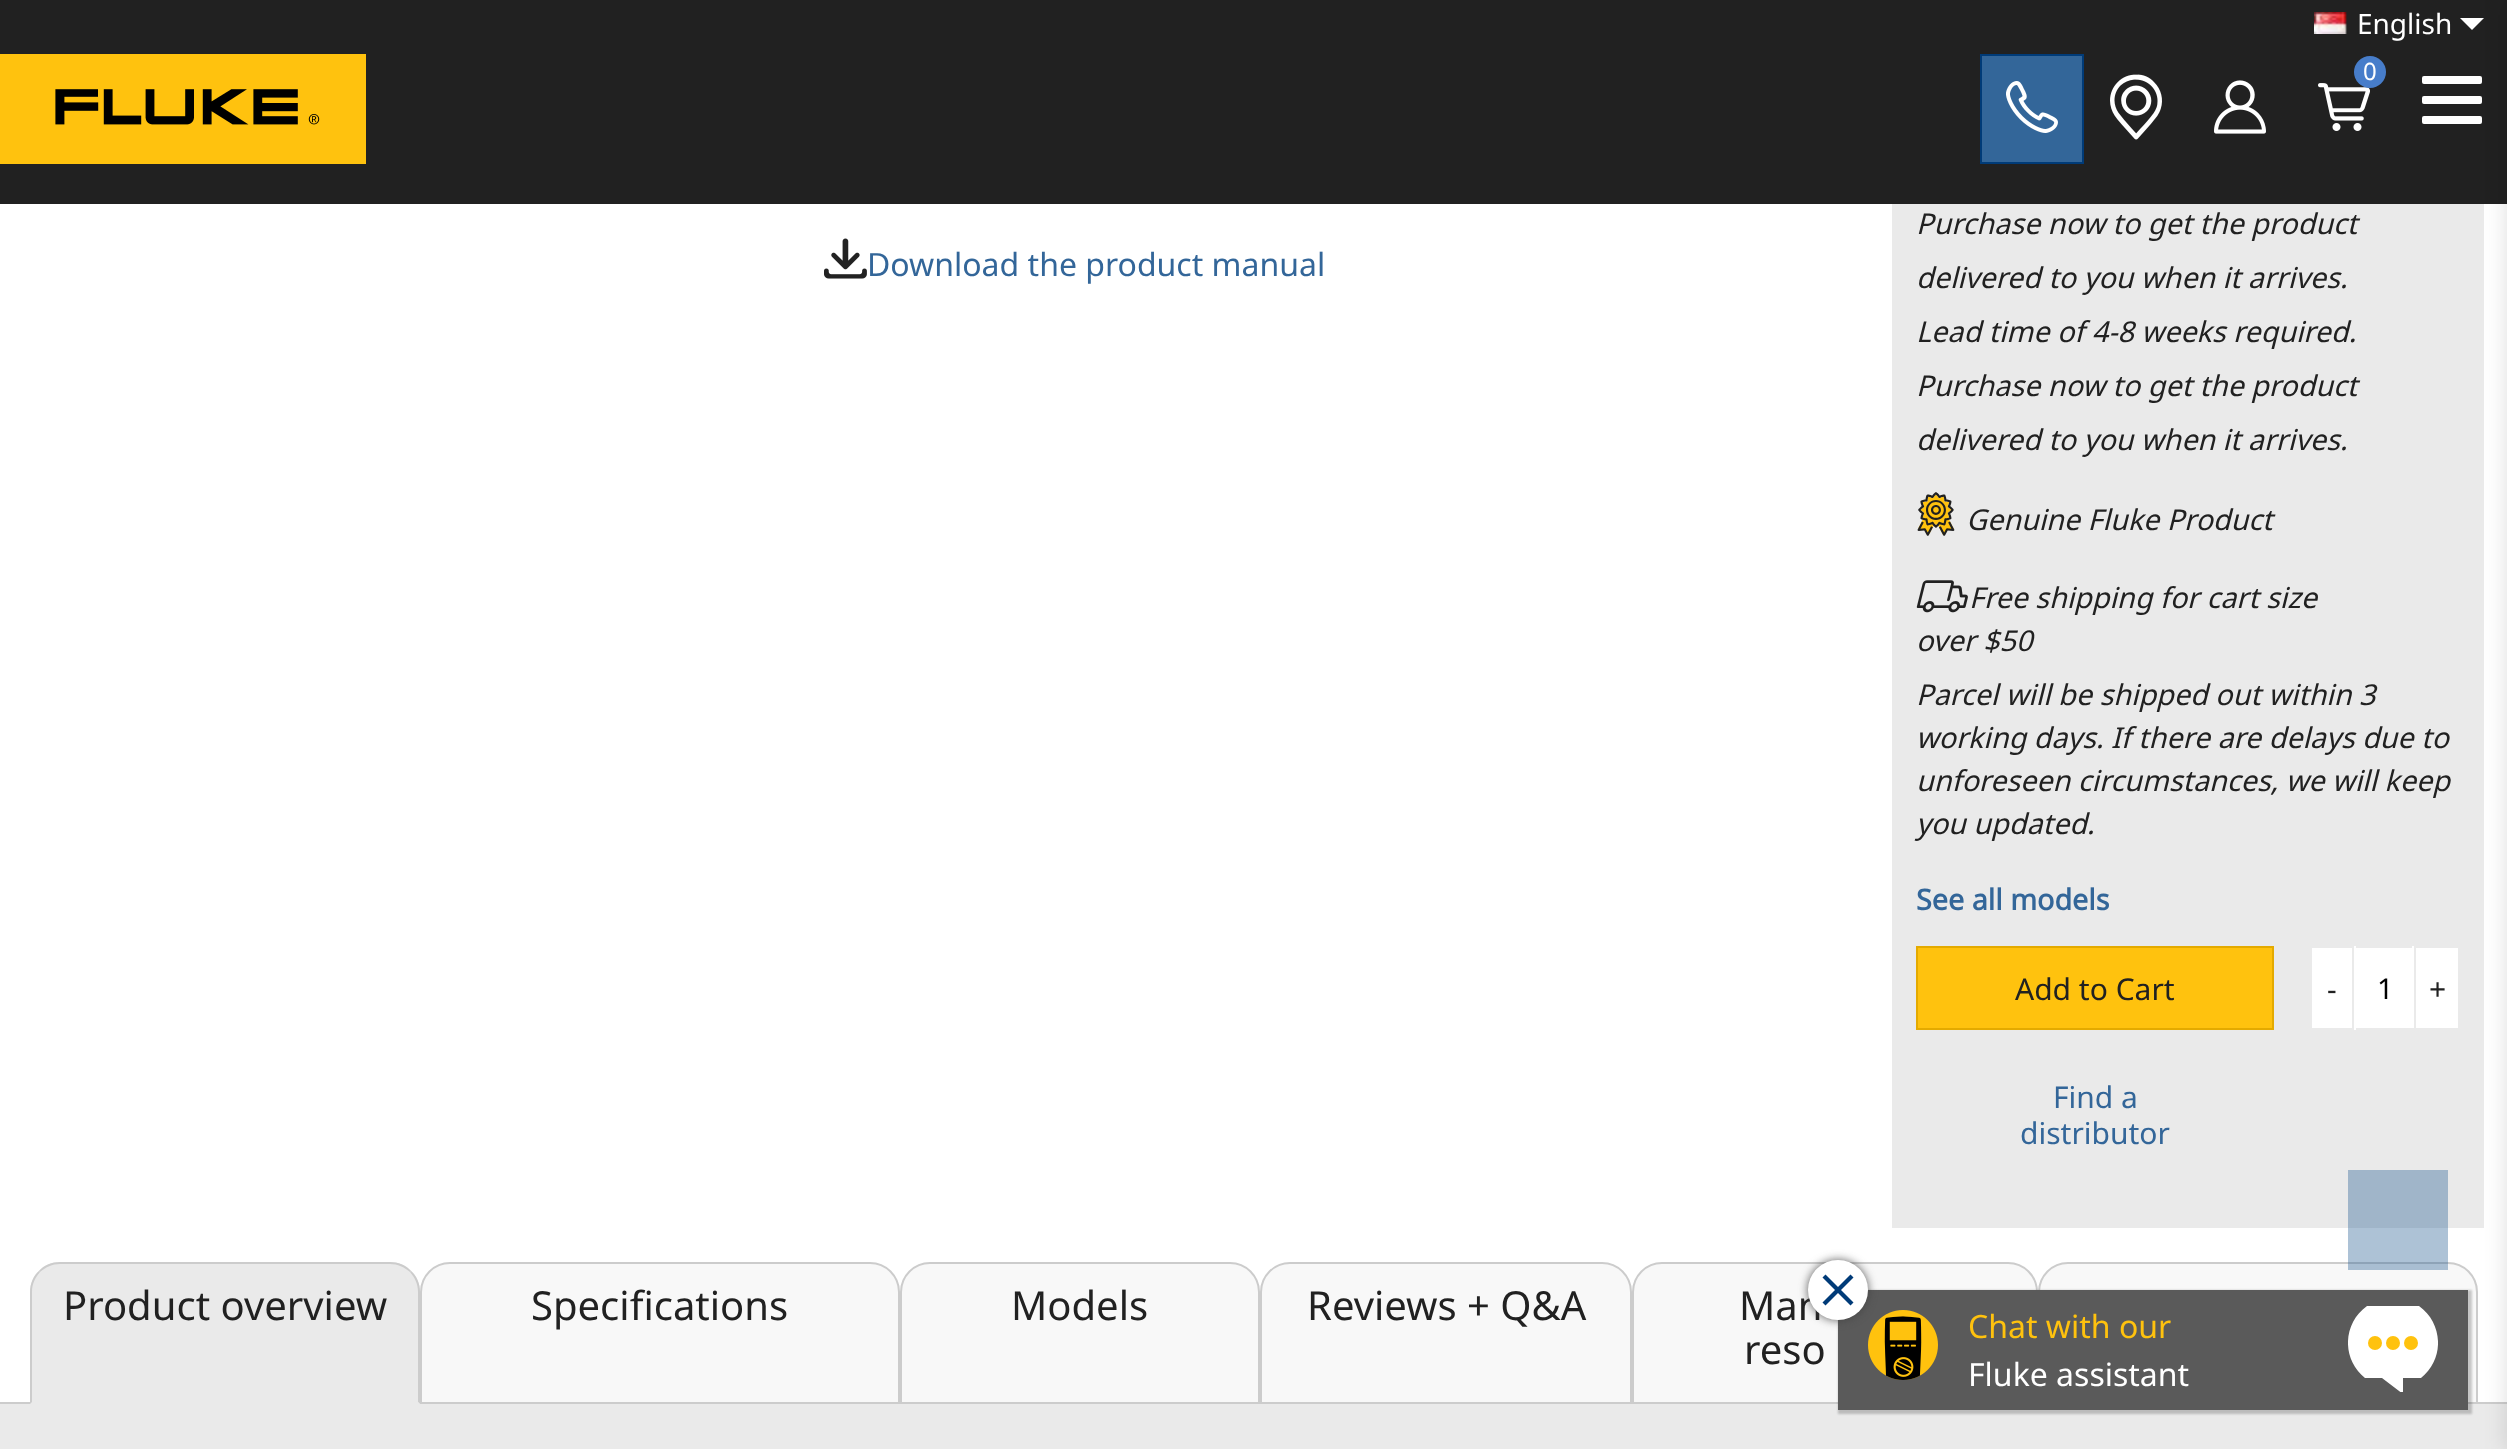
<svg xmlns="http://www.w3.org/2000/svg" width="2507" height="1449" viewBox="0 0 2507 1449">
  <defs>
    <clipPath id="clip1"><rect x="2348" y="1306" width="90" height="86"/></clipPath>
  </defs>
  <rect width="100%" height="100%" fill="rgb(255,255,255)"/>
  <rect x="0" y="0" width="2507" height="204" fill="rgb(33,33,33)"/>
  <image x="2314" y="12" width="33" height="22" href="pic1.png"/>
  <text x="2357" y="34" font-family="Noto Sans" font-size="28" fill="rgb(255,255,255)">English</text>
  <path d="M2460 18H2484L2472 30Z" fill="rgb(255,255,255)"/>
  <image x="0" y="54" width="366" height="110" href="pic2.png"/>
  <rect x="1981" y="55" width="102" height="108" fill="rgb(51,102,153)" stroke="rgb(0,59,120)" stroke-width="2"/>
  <image x="2006" y="81" width="52" height="52" href="pic3.png"/>
  <image x="2318" y="83" width="52" height="48" href="pic4.png"/>
  <circle cx="2370" cy="72" r="16" fill="rgb(71,125,202)"/>
  <text x="2363" y="80" font-family="Noto Sans" font-size="24" fill="rgb(255,255,255)">0</text>
  <rect x="2422" y="76" width="60" height="8" rx="2" fill="rgb(255,255,255)"/>
  <rect x="2422" y="96" width="60" height="8" rx="2" fill="rgb(255,255,255)"/>
  <rect x="2422" y="116" width="60" height="8" rx="2" fill="rgb(255,255,255)"/>
  <rect x="1892" y="204" width="592" height="1024" fill="rgb(234,234,234)"/>
  <rect x="0" y="1402" width="2507" height="2" fill="rgb(204,204,204)"/>
  <path d="M2068 1263H2448C2464 1263 2477 1276 2477 1292V1403H2039V1292C2039 1276 2052 1263 2068 1263Z" fill="rgb(248,248,248)" stroke="rgb(204,204,204)" stroke-width="2"/>
  <rect x="0" y="1404" width="2507" height="45" fill="rgb(234,234,234)"/>
  <rect x="2504" y="0" width="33" height="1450" fill="rgba(0,0,0,0.1)" filter="blur(10px)"/>
  <image x="2110" y="74" width="52" height="66" href="pic5.png"/>
  <image x="2214" y="80" width="52" height="54" href="pic6.png"/>
  <image x="824" y="238" width="43" height="41" href="pic7.png"/>
  <text x="867" y="276" font-family="Noto Sans" font-size="32" fill="rgb(51,102,153)">Download the product manual</text>
  <g font-family="Noto Sans" font-size="28.75" font-style="italic" fill="rgb(33,33,33)">
    <text>
      <tspan x="1916" y="234">Purchase now to get the product</tspan>
      <tspan x="1916" y="288">delivered to you when it arrives.</tspan>
      <tspan x="1916" y="342">Lead time of 4-8 weeks required.</tspan>
      <tspan x="1916" y="396">Purchase now to get the product</tspan>
      <tspan x="1916" y="450">delivered to you when it arrives.</tspan>
    </text>
  </g>
  <image x="1917" y="492" width="38" height="44" href="pic8.png"/>
  <text x="1966" y="530" font-family="Noto Sans" font-size="28.75" font-style="italic" fill="rgb(33,33,33)">Genuine Fluke Product</text>
  <image x="1916" y="580" width="52" height="33" href="pic9.png"/>
  <g font-family="Noto Sans" font-size="28.75" font-style="italic" fill="rgb(33,33,33)">
    <text x="1969" y="608">Free shipping for cart size</text>
    <text>
      <tspan x="1916" y="651">over $50</tspan>
      <tspan x="1916" y="705">Parcel will be shipped out within 3</tspan>
      <tspan x="1916" y="748">working days. If there are delays due to</tspan>
      <tspan x="1916" y="791">unforeseen circumstances, we will keep</tspan>
      <tspan x="1916" y="834">you updated.</tspan>
    </text>
  </g>
  <text x="1916" y="910" font-family="Noto Sans" font-size="28.75" font-weight="bold" fill="rgb(51,102,153)">See all models</text>
  <rect x="1917" y="947" width="356" height="82" fill="rgb(255,194,14)" stroke="rgb(228,170,0)" stroke-width="2"/>
  <text x="2015" y="1000" font-family="Noto Sans" font-size="30" fill="rgb(33,33,33)">Add to Cart</text>
  <rect x="2312" y="948" width="40" height="80" fill="rgb(255,255,255)"/>
  <text x="2327" y="1000" font-family="Noto Sans" font-size="30" fill="rgb(33,33,33)">-</text>
  <rect x="2356" y="948" width="56" height="80" fill="rgb(255,255,255)"/>
  <rect x="2412" y="946" width="2" height="84" fill="rgb(255,255,255)"/>
  <rect x="2412" y="1028" width="2" height="2" fill="rgb(234,234,234)"/>
  <rect x="2354" y="946" width="2" height="84" fill="rgb(255,255,255)"/>
  <text x="2377" y="999" font-family="Noto Sans" font-size="28.75" fill="rgb(0,0,0)">1</text>
  <rect x="2416" y="948" width="42" height="80" fill="rgb(255,255,255)"/>
  <text x="2429" y="1000" font-family="Noto Sans" font-size="30" fill="rgb(33,33,33)">+</text>
  <g font-family="Noto Sans" font-size="30" fill="rgb(51,102,153)">
    <text x="2053" y="1108">Find a</text>
    <text x="2020" y="1144">distributor</text>
  </g>
  <path d="M60 1262H390C406.5 1262 420 1275.5 420 1292V1404H30V1292C30 1275.5 43.5 1262 60 1262Z" fill="rgb(234,234,234)"/>
  <path d="M60 1262C52 1262 44 1265 39 1271L40 1272C46 1267 52 1264 60 1264H390C398 1264 404 1267 410 1272L411 1271C406 1265 398 1262 390 1262Z" fill="rgb(204,204,204)"/>
  <path d="M420 1404V1292C420 1284 417 1276 411 1271L410 1272C415 1278 418 1284 418 1292V1402Z" fill="rgb(204,204,204)"/>
  <path d="M420 1404L418 1402H32L30 1404Z" fill="rgb(234,234,234)"/>
  <path d="M30 1404L32 1402V1292C32 1284 35 1278 40 1272L39 1271C33 1276 30 1284 30 1292Z" fill="rgb(204,204,204)"/>
  <text x="63" y="1320" font-family="Noto Sans" font-size="40" fill="rgb(33,33,33)">Product overview</text>
  <path d="M450 1263H870C886 1263 899 1276 899 1292V1403H421V1292C421 1276 434 1263 450 1263Z" fill="rgb(248,248,248)" stroke="rgb(204,204,204)" stroke-width="2"/>
  <text x="531" y="1320" font-family="Noto Sans" font-size="40" fill="rgb(33,33,33)">Specifications</text>
  <path d="M930 1263H1230C1246 1263 1259 1276 1259 1292V1403H901V1292C901 1276 914 1263 930 1263Z" fill="rgb(248,248,248)" stroke="rgb(204,204,204)" stroke-width="2"/>
  <text x="1011" y="1320" font-family="Noto Sans" font-size="40" fill="rgb(33,33,33)">Models</text>
  <path d="M1290 1263H1602C1618 1263 1631 1276 1631 1292V1403H1261V1292C1261 1276 1274 1263 1290 1263Z" fill="rgb(248,248,248)" stroke="rgb(204,204,204)" stroke-width="2"/>
  <text x="1307" y="1320" font-family="Noto Sans" font-size="40" fill="rgb(33,33,33)">Reviews + Q&amp;A</text>
  <path d="M1662 1263H2008C2024 1263 2037 1276 2037 1292V1403H1633V1292C1633 1276 1646 1263 1662 1263Z" fill="rgb(248,248,248)" stroke="rgb(204,204,204)" stroke-width="2"/>
  <g font-family="Noto Sans" font-size="40" fill="rgb(33,33,33)">
    <text x="1739" y="1320">Man</text>
    <text x="1744" y="1364">reso</text>
  </g>
  <rect x="1838" y="1290" width="634" height="124" fill="rgba(0,0,0,0.2)" filter="blur(1px)"/>
  <rect x="1838" y="1290" width="630" height="120" fill="rgb(90,90,90)"/>
  <image x="1868" y="1310" width="70" height="70" href="pic10.png"/>
  <rect x="1808" y="1260" width="60" height="60" rx="30" fill="rgba(63,63,63,0.85)" filter="blur(5px)"/>
  <circle cx="1838" cy="1290" r="30" fill="rgb(255,255,255)"/>
  <path d="M1850.5 1274.5L1853.5 1277.5L1825.5 1305.5L1822.5 1302.5Z" fill="rgb(0,59,120)"/>
  <path d="M1822.5 1277.5L1825.5 1274.5L1853.5 1302.5L1850.5 1305.5Z" fill="rgb(0,59,120)"/>
  <text x="1968" y="1338" font-family="Noto Sans" font-size="32" fill="rgb(255,194,14)">Chat with our</text>
  <text x="1968" y="1386" font-family="Noto Sans" font-size="32" fill="rgb(255,255,255)">Fluke assistant</text>
  <g clip-path="url(#clip1)">
    <path d="M2382 1378H2403V1394ZM2365 1378C2341 1359 2343 1323 2367 1306H2419C2443 1323 2445 1359 2421 1378Z" fill="rgb(255,255,255)"/>
  </g>
  <circle cx="2375" cy="1343" r="7" fill="rgb(255,194,14)"/>
  <circle cx="2393" cy="1343" r="7" fill="rgb(255,194,14)"/>
  <circle cx="2411" cy="1343" r="7" fill="rgb(255,194,14)"/>
  <rect x="2348" y="1170" width="100" height="100" fill="rgba(51,102,153,0.4)"/>
</svg>
